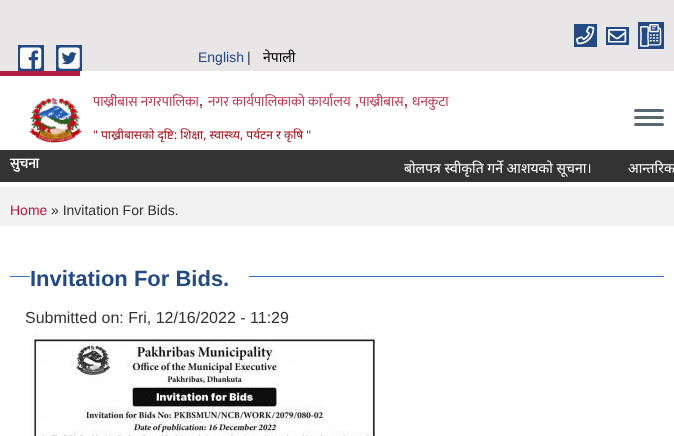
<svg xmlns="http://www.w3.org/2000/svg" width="674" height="436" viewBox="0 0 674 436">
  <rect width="100%" height="100%" fill="rgb(255,255,255)"/>
  <rect x="0" y="0" width="674" height="71" fill="rgb(232,230,230)"/>
  <rect x="574" y="24" width="23" height="23" fill="rgb(35,74,131)"/>
  <rect x="638" y="22" width="26" height="27" fill="rgb(35,74,131)"/>
  <image x="576" y="26" width="19" height="19" href="pic1.png"/>
  <rect x="606" y="27" width="23" height="18" fill="rgb(35,74,131)"/>
  <image x="640" y="24" width="22" height="23" href="pic2.png"/>
  <image x="608" y="29" width="19" height="14" href="pic3.png"/>
  <rect x="18" y="45" width="26" height="26" fill="rgb(35,74,131)"/>
  <rect x="56" y="45" width="26" height="26" fill="rgb(35,74,131)"/>
  <image x="20" y="47" width="22" height="22" href="pic4.png"/>
  <image x="58" y="47" width="22" height="22" href="pic5.png"/>
  <text x="198" y="62" font-family="Liberation Sans" font-size="14" fill="rgb(35,74,131)">English</text>
  <text x="247" y="62" font-family="Liberation Sans" font-size="14" fill="rgb(51,51,51)">|</text>
  <text x="263" y="62" font-family="Noto Sans" font-size="14" fill="rgb(0,0,0)">नेपाली</text>
  <rect x="0" y="71" width="80" height="5" fill="rgb(178,28,66)"/>
  <image x="29" y="97" width="54" height="46" href="pic6.png"/>
  <text x="93" y="106" font-family="Mukta" font-size="14" fill="rgb(184,57,85)">पाख्रीबास नगरपालिका</text>
  <text x="199" y="106" font-family="Liberation Sans" font-size="14" font-weight="bold" fill="rgb(184,57,85)">,</text>
  <text x="208" y="106" font-family="Mukta" font-size="14" fill="rgb(184,57,85)">नगर कार्यपालिकाको कार्यालय</text>
  <text x="355" y="106" font-family="Liberation Sans" font-size="14" font-weight="bold" fill="rgb(184,57,85)">,</text>
  <text x="359" y="106" font-family="Mukta" font-size="14" fill="rgb(184,57,85)">पाख्रीबास</text>
  <text x="404" y="106" font-family="Liberation Sans" font-size="14" font-weight="bold" fill="rgb(184,57,85)">,</text>
  <text x="412" y="106" font-family="Mukta" font-size="14" fill="rgb(184,57,85)">धनकुटा</text>
  <text x="93" y="139" font-family="Noto Sans" font-size="12" fill="rgb(158,12,24)">" पाख्रीबासको दृष्टि: शिक्षा, स्वास्थ्य, पर्यटन र कृषि "</text>
  <rect x="634" y="109" width="30" height="3" rx="1.5" fill="rgb(86,105,115)"/>
  <rect x="634" y="116" width="30" height="3" rx="1.5" fill="rgb(86,105,115)"/>
  <rect x="634" y="123" width="30" height="3" rx="1.5" fill="rgb(86,105,115)"/>
  <rect x="0" y="150" width="674" height="32" fill="rgb(51,51,51)"/>
  <text x="10" y="168" font-family="Mukta" font-size="14" font-weight="bold" fill="rgb(255,255,255)">सुचना</text>
  <g font-family="Noto Sans" font-size="14" fill="rgb(255,255,255)">
    <text x="404" y="173">बोलपत्र स्वीकृति गर्ने आशयको सूचना।</text>
    <text x="628" y="173">आन्तरिक</text>
  </g>
  <rect x="0" y="187" width="674" height="39" fill="rgb(242,242,242)"/>
  <text x="10" y="215" font-family="Liberation Sans" font-size="14" fill="rgb(178,28,66)">Home</text>
  <text x="51" y="215" font-family="Liberation Sans" font-size="14" fill="rgb(51,51,51)">» Invitation For Bids.</text>
  <rect x="10" y="276" width="654" height="1" fill="rgb(55,111,194)"/>
  <rect x="30" y="276" width="219" height="1" fill="rgb(255,255,255)"/>
  <text x="30" y="286" font-family="Liberation Sans" font-size="22" font-weight="bold" fill="rgb(35,74,131)">Invitation For Bids.</text>
  <text x="25" y="323" font-family="Liberation Sans" font-size="16" fill="rgb(51,51,51)">Submitted on: Fri, 12/16/2022 - 11:29</text>
  <image x="30" y="334" width="348" height="102" href="pic7.png"/>
</svg>
